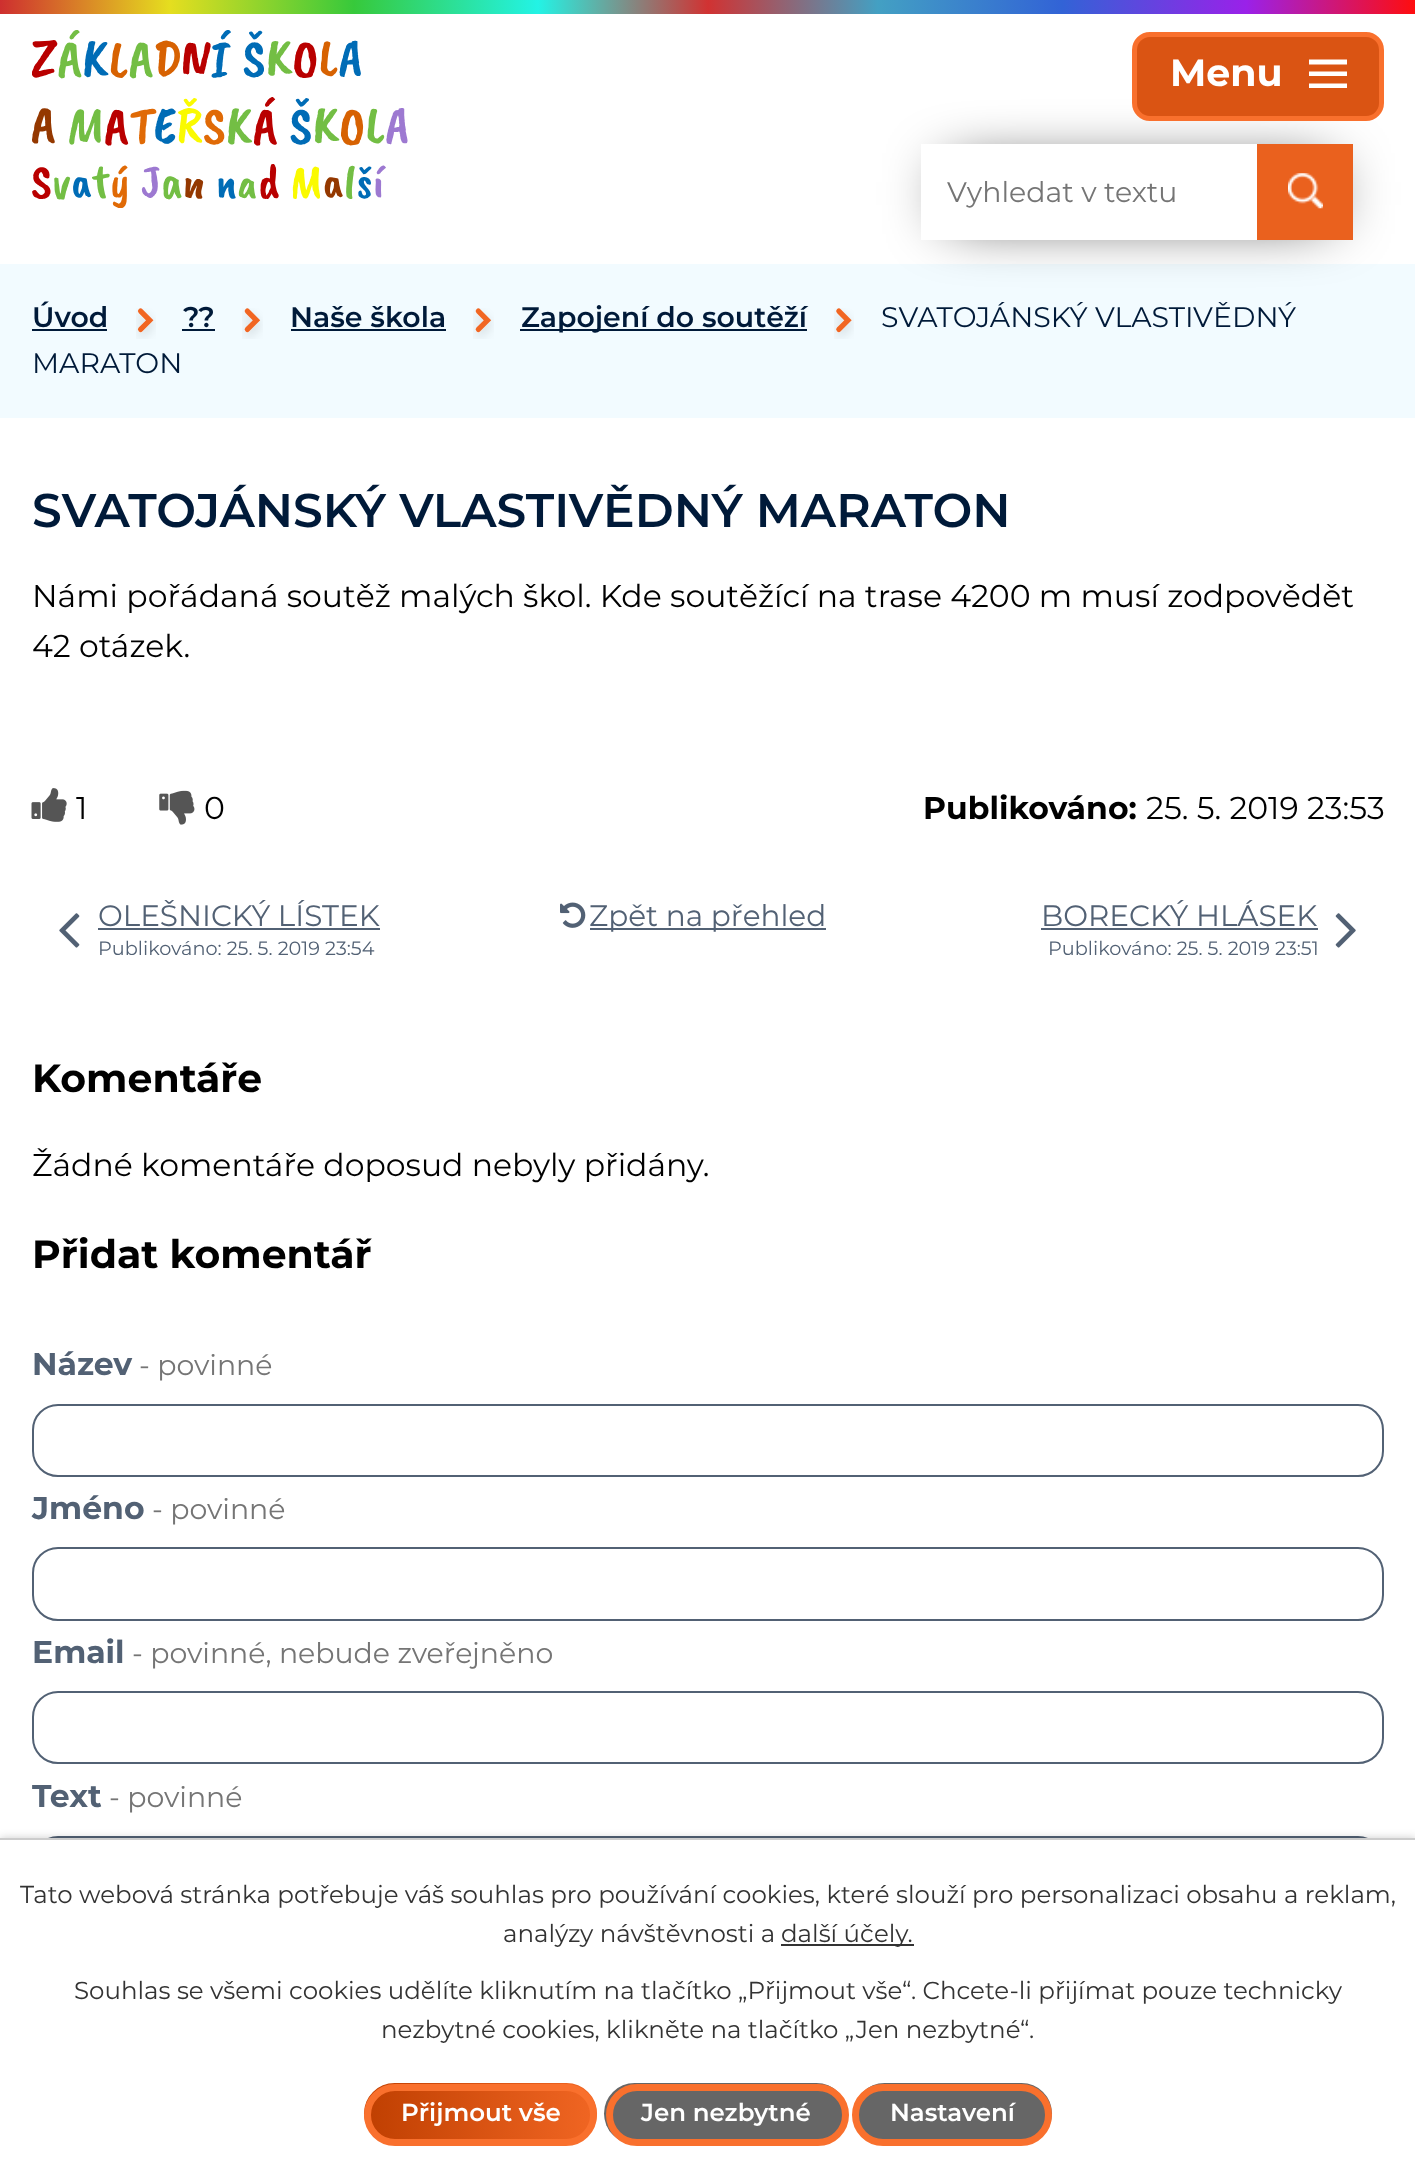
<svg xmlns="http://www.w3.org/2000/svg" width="1415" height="2177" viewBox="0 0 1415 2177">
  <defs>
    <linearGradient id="g1" gradientUnits="userSpaceOnUse" x1="0" y1="7" x2="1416" y2="7"><stop offset="0" stop-color="rgb(206,47,47)"/><stop offset="0.12" stop-color="rgb(229,222,31)"/><stop offset="0.25" stop-color="rgb(55,201,59)"/><stop offset="0.38" stop-color="rgb(35,243,229)"/><stop offset="0.5" stop-color="rgb(209,50,50)"/><stop offset="0.62" stop-color="rgb(67,160,195)"/><stop offset="0.75" stop-color="rgb(50,99,214)"/><stop offset="0.88" stop-color="rgb(154,33,233)"/><stop offset="1" stop-color="rgb(255,13,13)"/></linearGradient>
    <linearGradient id="g2" gradientUnits="userSpaceOnUse" x1="364" y1="2113" x2="597" y2="2113"><stop offset="0" stop-color="rgb(191,63,1)"/><stop offset="1" stop-color="rgb(241,102,35)"/></linearGradient>
  </defs>
  <rect width="100%" height="100%" fill="rgb(255,255,255)"/>
  <rect x="0" y="264" width="1415" height="154" fill="rgb(242,251,255)"/>
  <rect x="949" y="172" width="379" height="43" fill="rgb(0,0,0)" filter="blur(30.5px)"/>
  <rect x="1134.5" y="34.5" width="247" height="84" rx="15.5" fill="rgb(218,84,19)" stroke="rgb(249,112,45)" stroke-width="5"/>
  <text x="1170" y="86" font-family="Montserrat" font-size="38" font-weight="bold" fill="rgb(255,255,255)">Menu</text>
  <path d="M1309 88V83.5H1347V88ZM1309 59.5H1347V64.5H1309ZM1309 76V71.5H1347V76Z" fill="rgb(255,255,255)"/>
  <rect x="0" y="0" width="1415" height="14" fill="url(#g1)"/>
  <image x="32" y="30" width="376" height="178" href="pic1.png"/>
  <rect x="921" y="144" width="336" height="96" fill="rgb(255,255,255)"/>
  <text x="947" y="202" font-family="Montserrat" font-size="28.4" fill="rgb(117,117,117)">Vyhledat v textu</text>
  <rect x="1257" y="144" width="96" height="96" fill="rgb(234,97,30)"/>
  <image x="1288" y="173" width="35" height="36" href="pic2.png"/>
  <text x="32" y="327" font-family="Montserrat" font-size="28.4" font-weight="600" fill="rgb(0,26,57)">Úvod</text>
  <rect x="32" y="329" width="75" height="2" fill="rgb(0,26,57)"/>
  <image x="136" y="308" width="20" height="31" href="pic3.png"/>
  <text x="183" y="327" font-family="Montserrat" font-size="28.4" font-weight="600" fill="rgb(0,26,57)">??</text>
  <rect x="182" y="329" width="33" height="2" fill="rgb(0,26,57)"/>
  <image x="242" y="308" width="21" height="31" href="pic4.png"/>
  <text x="290" y="327" font-family="Montserrat" font-size="28.4" font-weight="600" fill="rgb(0,26,57)">Naše škola</text>
  <rect x="291" y="329" width="155" height="2" fill="rgb(0,26,57)"/>
  <image x="473" y="308" width="21" height="31" href="pic4.png"/>
  <rect x="520" y="329" width="287" height="2" fill="rgb(0,26,57)"/>
  <text x="521" y="327" font-family="Montserrat" font-size="28.4" font-weight="600" fill="rgb(0,26,57)">Zapojení do soutěží</text>
  <image x="834" y="308" width="20" height="31" href="pic5.png"/>
  <g font-family="Montserrat" font-size="28.4" fill="rgb(0,26,57)">
    <text x="881" y="327">SVATOJÁNSKÝ VLASTIVĚDNÝ</text>
    <text x="32" y="373">MARATON</text>
  </g>
  <text x="32" y="527" font-family="Montserrat" font-size="47.25" font-weight="600" fill="rgb(0,26,57)">SVATOJÁNSKÝ VLASTIVĚDNÝ MARATON</text>
  <g font-family="Montserrat" font-size="31.5" fill="rgb(0,0,0)">
    <text>
      <tspan x="32" y="607">Námi pořádaná soutěž malých škol. Kde soutěžící na trase 4200 m musí zodpovědět</tspan>
      <tspan x="32" y="657">42 otázek.</tspan>
    </text>
  </g>
  <image x="31" y="788" width="36" height="34" href="pic6.png"/>
  <text x="76" y="819" font-family="Montserrat" font-size="31.5" fill="rgb(0,0,0)">1</text>
  <image x="159" y="790" width="36" height="35" href="pic7.png"/>
  <text x="204" y="819" font-family="Montserrat" font-size="31.5" fill="rgb(0,0,0)">0</text>
  <text x="923" y="819" font-family="Montserrat" font-size="31.5" font-weight="bold" fill="rgb(0,0,0)">Publikováno:</text>
  <text x="1146" y="819" font-family="Montserrat" font-size="31.5" fill="rgb(0,0,0)">25. 5. 2019 23:53</text>
  <image x="59" y="913" width="21" height="35" href="pic8.png"/>
  <text x="98" y="926" font-family="Montserrat" font-size="29.5" fill="rgb(82,97,116)">OLEŠNICKÝ LÍSTEK</text>
  <rect x="98" y="928" width="282" height="2" fill="rgb(82,97,116)"/>
  <text x="98" y="955" font-family="Montserrat" font-size="19.25" fill="rgb(82,97,116)">Publikováno: 25. 5. 2019 23:54</text>
  <image x="560" y="902" width="26" height="26" href="pic9.png"/>
  <rect x="590" y="928" width="236" height="2" fill="rgb(82,97,116)"/>
  <g font-family="Montserrat" font-size="29.5" fill="rgb(82,97,116)">
    <text x="589" y="926">Zpět na přehled</text>
    <text x="1041" y="926">BORECKÝ HLÁSEK</text>
  </g>
  <rect x="1041" y="928" width="277" height="2" fill="rgb(82,97,116)"/>
  <text x="1048" y="955" font-family="Montserrat" font-size="19.25" fill="rgb(82,97,116)">Publikováno: 25. 5. 2019 23:51</text>
  <image x="1335" y="913" width="21" height="35" href="pic10.png"/>
  <text x="32" y="1092" font-family="Montserrat" font-size="39.4" font-weight="bold" fill="rgb(0,0,0)">Komentáře</text>
  <text x="32" y="1176" font-family="Montserrat" font-size="31.5" fill="rgb(0,0,0)">Žádné komentáře doposud nebyly přidány.</text>
  <text x="32" y="1268" font-family="Montserrat" font-size="39.4" font-weight="bold" fill="rgb(0,0,0)">Přidat komentář</text>
  <text x="32" y="1375" font-family="Montserrat" font-size="31.5" font-weight="bold" fill="rgb(82,97,116)">Název</text>
  <text x="139" y="1375" font-family="Montserrat" font-size="28.4" fill="rgb(117,117,117)">- povinné</text>
  <rect x="33" y="1405" width="1350" height="71" rx="25" fill="none" stroke="rgb(82,97,116)" stroke-width="2"/>
  <text x="32" y="1519" font-family="Montserrat" font-size="31.5" font-weight="bold" fill="rgb(82,97,116)">Jméno</text>
  <text x="152" y="1519" font-family="Montserrat" font-size="28.4" fill="rgb(117,117,117)">- povinné</text>
  <rect x="33" y="1548" width="1350" height="72" rx="25" fill="none" stroke="rgb(82,97,116)" stroke-width="2"/>
  <text x="32" y="1663" font-family="Montserrat" font-size="31.5" font-weight="bold" fill="rgb(82,97,116)">Email</text>
  <text x="132" y="1663" font-family="Montserrat" font-size="28.4" fill="rgb(117,117,117)">- povinné, nebude zveřejněno</text>
  <rect x="33" y="1692" width="1350" height="71" rx="25" fill="none" stroke="rgb(82,97,116)" stroke-width="2"/>
  <text x="32" y="1807" font-family="Montserrat" font-size="31.5" font-weight="bold" fill="rgb(82,97,116)">Text</text>
  <text x="109" y="1807" font-family="Montserrat" font-size="28.4" fill="rgb(117,117,117)">- povinné</text>
  <rect x="33" y="1837" width="1350" height="250" rx="25" fill="none" stroke="rgb(82,97,116)" stroke-width="2"/>
  <rect x="0" y="1838" width="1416" height="339" fill="rgba(0,0,0,0.2)" filter="blur(4.5px)"/>
  <rect x="0" y="1840" width="1415" height="337" fill="rgb(255,255,255)"/>
  <rect x="0" y="1838" width="1415" height="2" fill="rgb(204,204,204)"/>
  <g font-family="Montserrat" font-size="24.5" fill="rgb(51,51,51)">
    <text x="20" y="1903">Tato webová stránka potřebuje váš souhlas pro používání cookies, které slouží pro personalizaci obsahu a reklam,</text>
    <text x="503" y="1942">analýzy návštěvnosti a</text>
  </g>
  <rect x="781" y="1944" width="133" height="2" fill="rgb(51,51,51)"/>
  <g font-family="Montserrat" font-size="24.5" fill="rgb(51,51,51)">
    <text x="781" y="1942">další účely.</text>
    <text x="74" y="1999">Souhlas se všemi cookies udělíte kliknutím na tlačítko „Přijmout vše“. Chcete-li přijímat pouze technicky</text>
    <text x="381" y="2038">nezbytné cookies, klikněte na tlačítko „Jen nezbytné“.</text>
  </g>
  <rect x="364" y="2083" width="233" height="61" rx="30.5" fill="url(#g2)"/>
  <rect x="367.5" y="2087.5" width="226" height="55" rx="27.5" fill="none" stroke="rgb(249,112,45)" stroke-width="7"/>
  <text x="401" y="2121" font-family="Montserrat" font-size="24.5" font-weight="600" fill="rgb(255,255,255)">Přijmout vše</text>
  <rect x="604" y="2083" width="243" height="61" rx="30.5" fill="rgb(102,102,102)"/>
  <rect x="609.5" y="2087.5" width="236" height="55" rx="27.5" fill="none" stroke="rgb(249,112,45)" stroke-width="7"/>
  <text x="641" y="2121" font-family="Montserrat" font-size="24.5" font-weight="600" fill="rgb(255,255,255)">Jen nezbytné</text>
  <rect x="854" y="2083" width="198" height="61" rx="30.5" fill="rgb(102,102,102)"/>
  <rect x="855.5" y="2087.5" width="193" height="55" rx="27.5" fill="none" stroke="rgb(249,112,45)" stroke-width="7"/>
  <text x="890" y="2121" font-family="Montserrat" font-size="24.5" font-weight="600" fill="rgb(255,255,255)">Nastavení</text>
</svg>
